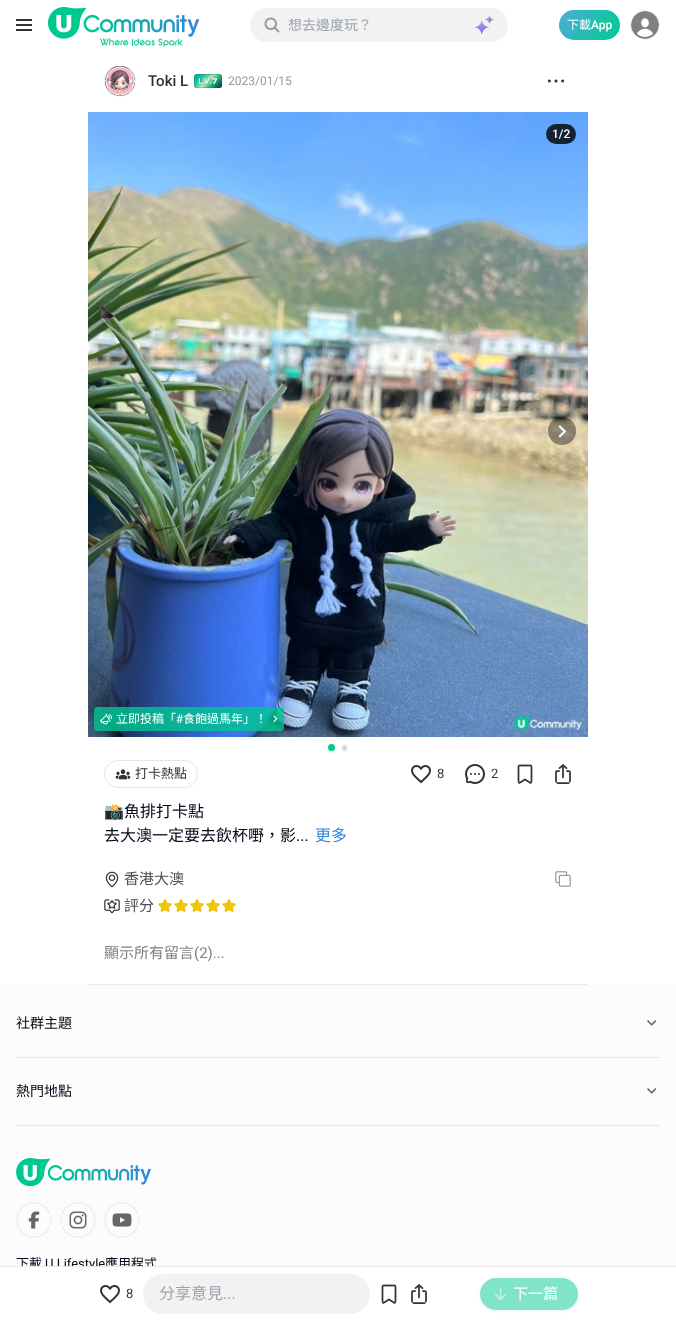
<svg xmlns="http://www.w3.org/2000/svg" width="676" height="1321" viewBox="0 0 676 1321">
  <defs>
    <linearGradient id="g1" gradientUnits="userSpaceOnUse" x1="559" y1="11" x2="620" y2="39"><stop offset="0" stop-color="rgb(75,173,214)"/><stop offset="1" stop-color="rgb(0,204,143)"/></linearGradient>
  </defs>
  <rect width="100%" height="100%" fill="rgb(255,255,255)"/>
  <image x="16" y="19" width="16" height="12" href="pic1.png"/>
  <image x="48" y="7" width="151" height="40" href="pic2.png"/>
  <rect x="250" y="8" width="258" height="34" rx="17" fill="rgb(242,242,242)"/>
  <image x="264" y="17" width="16" height="16" href="pic3.png"/>
  <text x="288" y="30" font-family="Noto Sans CJK HK" font-size="14" fill="rgb(156,163,175)">想去邊度玩？</text>
  <image x="474" y="15" width="20" height="20" href="pic4.png"/>
  <rect x="559" y="10" width="61" height="30" rx="15" fill="url(#g1)"/>
  <text x="567" y="29" font-family="Noto Sans CJK HK" font-size="12" fill="rgb(255,255,255)">下載</text>
  <text x="591" y="29" font-family="Roboto" font-size="12" font-weight="500" fill="rgb(255,255,255)">App</text>
  <circle cx="645" cy="25" r="14.5" fill="none" stroke="rgb(242,242,242)"/>
  <image x="631" y="11" width="28" height="28" href="pic5.png"/>
  <rect x="88" y="984" width="500" height="1" fill="rgb(235,235,235)"/>
  <circle cx="120" cy="81" r="15.5" fill="none" stroke="rgb(242,242,242)"/>
  <image x="105" y="66" width="30" height="30" href="pic6.png"/>
  <text x="148" y="86" font-family="Roboto" font-size="15" font-weight="500" fill="rgb(51,51,51)">Toki L</text>
  <image x="194" y="74" width="28" height="14" href="pic7.png"/>
  <text x="228" y="85" font-family="Roboto" font-size="12" fill="rgb(153,153,153)">2023/01/15</text>
  <image x="547" y="79" width="18" height="4" href="pic8.png"/>
  <image x="88" y="112" width="500" height="625" href="pic10.png"/>
  <rect x="546" y="124" width="30" height="20" rx="10" fill="rgba(0,0,0,0.8)"/>
  <text x="552" y="138" font-family="Roboto" font-size="12" font-weight="500" fill="rgb(255,255,255)">1/2</text>
  <circle cx="562" cy="431" r="14" fill="rgba(0,0,0,0.4)"/>
  <image x="558" y="425" width="9" height="13" href="pic9.png"/>
  <rect x="94" y="707" width="190" height="24" rx="4" fill="rgba(0,200,145,0.8)"/>
  <image x="100" y="713" width="12" height="12" href="pic11.png"/>
  <text x="116" y="723" font-family="Noto Sans CJK HK" font-size="12" fill="rgb(255,255,255)">立即投稿「</text>
  <text x="176" y="723" font-family="Roboto" font-size="12" font-weight="500" fill="rgb(255,255,255)">#</text>
  <text x="183" y="723" font-family="Noto Sans CJK HK" font-size="12" fill="rgb(255,255,255)">食飽過馬年」！</text>
  <image x="273" y="715" width="5" height="8" href="pic12.png"/>
  <rect x="330" y="747" width="3" height="4" rx="1.5" fill="rgba(0,0,0,0.1)" filter="blur(1px)"/>
  <rect x="328" y="746" width="7" height="6" rx="3" fill="rgba(0,0,0,0.1)" filter="blur(2px)"/>
  <circle cx="331.5" cy="747.5" r="3.5" fill="rgb(0,200,145)"/>
  <rect x="343" y="747" width="3" height="3" rx="1.5" fill="rgba(0,0,0,0.1)" filter="blur(1px)"/>
  <rect x="342" y="746" width="5" height="5" rx="2.5" fill="rgba(0,0,0,0.1)" filter="blur(1.5px)"/>
  <circle cx="344.5" cy="747.5" r="2.5" fill="rgb(216,216,216)"/>
  <rect x="104.5" y="760.5" width="93" height="27" rx="13.5" fill="none" stroke="rgb(230,230,230)"/>
  <image x="115" y="769" width="16" height="11" href="pic13.png"/>
  <text x="135" y="778" font-family="Noto Sans CJK HK" font-size="13" fill="rgb(51,51,51)">打卡熱點</text>
  <image x="411" y="765" width="20" height="19" href="pic14.png"/>
  <text x="437" y="778" font-family="Roboto" font-size="13" fill="rgb(51,51,51)">8</text>
  <image x="465" y="764" width="20" height="20" href="pic15.png"/>
  <text x="491" y="778" font-family="Roboto" font-size="13" fill="rgb(51,51,51)">2</text>
  <image x="517" y="764" width="16" height="20" href="pic16.png"/>
  <image x="555" y="764" width="16" height="20" href="pic17.png"/>
  <text x="104" y="817" font-family="Noto Color Emoji" font-size="16" fill="rgb(2,8,23)">📸️</text>
  <g font-family="Noto Sans CJK HK" font-size="16" fill="rgb(2,8,23)">
    <text x="124" y="817">魚排打卡點</text>
    <text x="104" y="841">去大澳一定要去飲杯嘢，影</text>
  </g>
  <text x="296" y="841" font-family="Roboto" font-size="16" fill="rgb(2,8,23)">...</text>
  <text x="315" y="841" font-family="Noto Sans CJK HK" font-size="16" fill="rgb(48,135,217)">更多</text>
  <image x="105" y="871" width="14" height="17" href="pic18.png"/>
  <text x="124" y="884" font-family="Noto Sans CJK HK" font-size="15" fill="rgb(80,80,80)">香港大澳</text>
  <image x="555" y="871" width="16" height="16" href="pic19.png"/>
  <image x="104" y="899" width="16" height="15" href="pic20.png"/>
  <text x="124" y="911" font-family="Noto Sans CJK HK" font-size="15" fill="rgb(80,80,80)">評分</text>
  <image x="158" y="898" width="14" height="14" href="pic21.png"/>
  <image x="174" y="898" width="14" height="14" href="pic21.png"/>
  <image x="190" y="898" width="14" height="14" href="pic21.png"/>
  <image x="206" y="898" width="14" height="14" href="pic21.png"/>
  <image x="222" y="898" width="14" height="14" href="pic21.png"/>
  <text x="104" y="958" font-family="Noto Sans CJK HK" font-size="15" fill="rgb(128,128,128)">顯示所有留言</text>
  <text x="194" y="958" font-family="Roboto" font-size="15" fill="rgb(128,128,128)">(2)...</text>
  <rect x="0" y="985" width="676" height="281" fill="rgb(252,252,252)"/>
  <text x="16" y="1028" font-family="Noto Sans CJK HK" font-size="14" fill="rgb(2,8,23)">社群主題</text>
  <image x="647" y="1020" width="10" height="6" href="pic22.png"/>
  <rect x="16" y="1057" width="644" height="1" fill="rgb(226,232,240)"/>
  <text x="16" y="1096" font-family="Noto Sans CJK HK" font-size="14" fill="rgb(2,8,23)">熱門地點</text>
  <image x="647" y="1088" width="10" height="6" href="pic22.png"/>
  <rect x="16" y="1125" width="644" height="1" fill="rgb(226,232,240)"/>
  <image x="16" y="1158" width="135" height="28" href="pic23.png"/>
  <image x="16" y="1202" width="36" height="36" href="pic24.png"/>
  <image x="60" y="1202" width="36" height="36" href="pic25.png"/>
  <image x="104" y="1202" width="36" height="36" href="pic26.png"/>
  <text x="16" y="1268" font-family="Noto Sans CJK HK" font-size="13" fill="rgb(2,8,23)">下載</text>
  <text x="45" y="1268" font-family="Roboto" font-size="13" fill="rgb(2,8,23)">U Lifestyle</text>
  <text x="105" y="1268" font-family="Noto Sans CJK HK" font-size="13" fill="rgb(2,8,23)">應用程式</text>
  <rect x="21" y="1267" width="136" height="4" fill="rgb(255,255,255)"/>
  <rect x="0" y="1266" width="676" height="1" fill="rgb(231,231,231)"/>
  <image x="100" y="1285" width="20" height="19" href="pic14.png"/>
  <text x="126" y="1298" font-family="Roboto" font-size="13" fill="rgb(51,51,51)">8</text>
  <rect x="143" y="1274" width="227" height="40" rx="20" fill="rgb(242,242,242)"/>
  <text x="159" y="1299" font-family="Noto Sans CJK HK" font-size="16" fill="rgb(156,163,175)">分享意見</text>
  <text x="223" y="1299" font-family="Roboto" font-size="16" fill="rgb(156,163,175)">...</text>
  <image x="381" y="1284" width="16" height="20" href="pic16.png"/>
  <image x="411" y="1284" width="16" height="20" href="pic17.png"/>
  <rect x="481" y="1280" width="96" height="30" rx="15" fill="rgba(128,128,128,0.1)" filter="blur(1px)"/>
  <rect x="480" y="1279" width="98" height="32" rx="16" fill="rgba(128,128,128,0.1)" filter="blur(1.5px)"/>
  <rect x="480" y="1278" width="98" height="32" rx="16" fill="rgb(128,228,200)"/>
  <image x="495" y="1288" width="11" height="12" href="pic27.png"/>
  <text x="513" y="1299" font-family="Noto Sans CJK HK" font-size="15" fill="rgb(255,255,255)">下一篇</text>
</svg>
